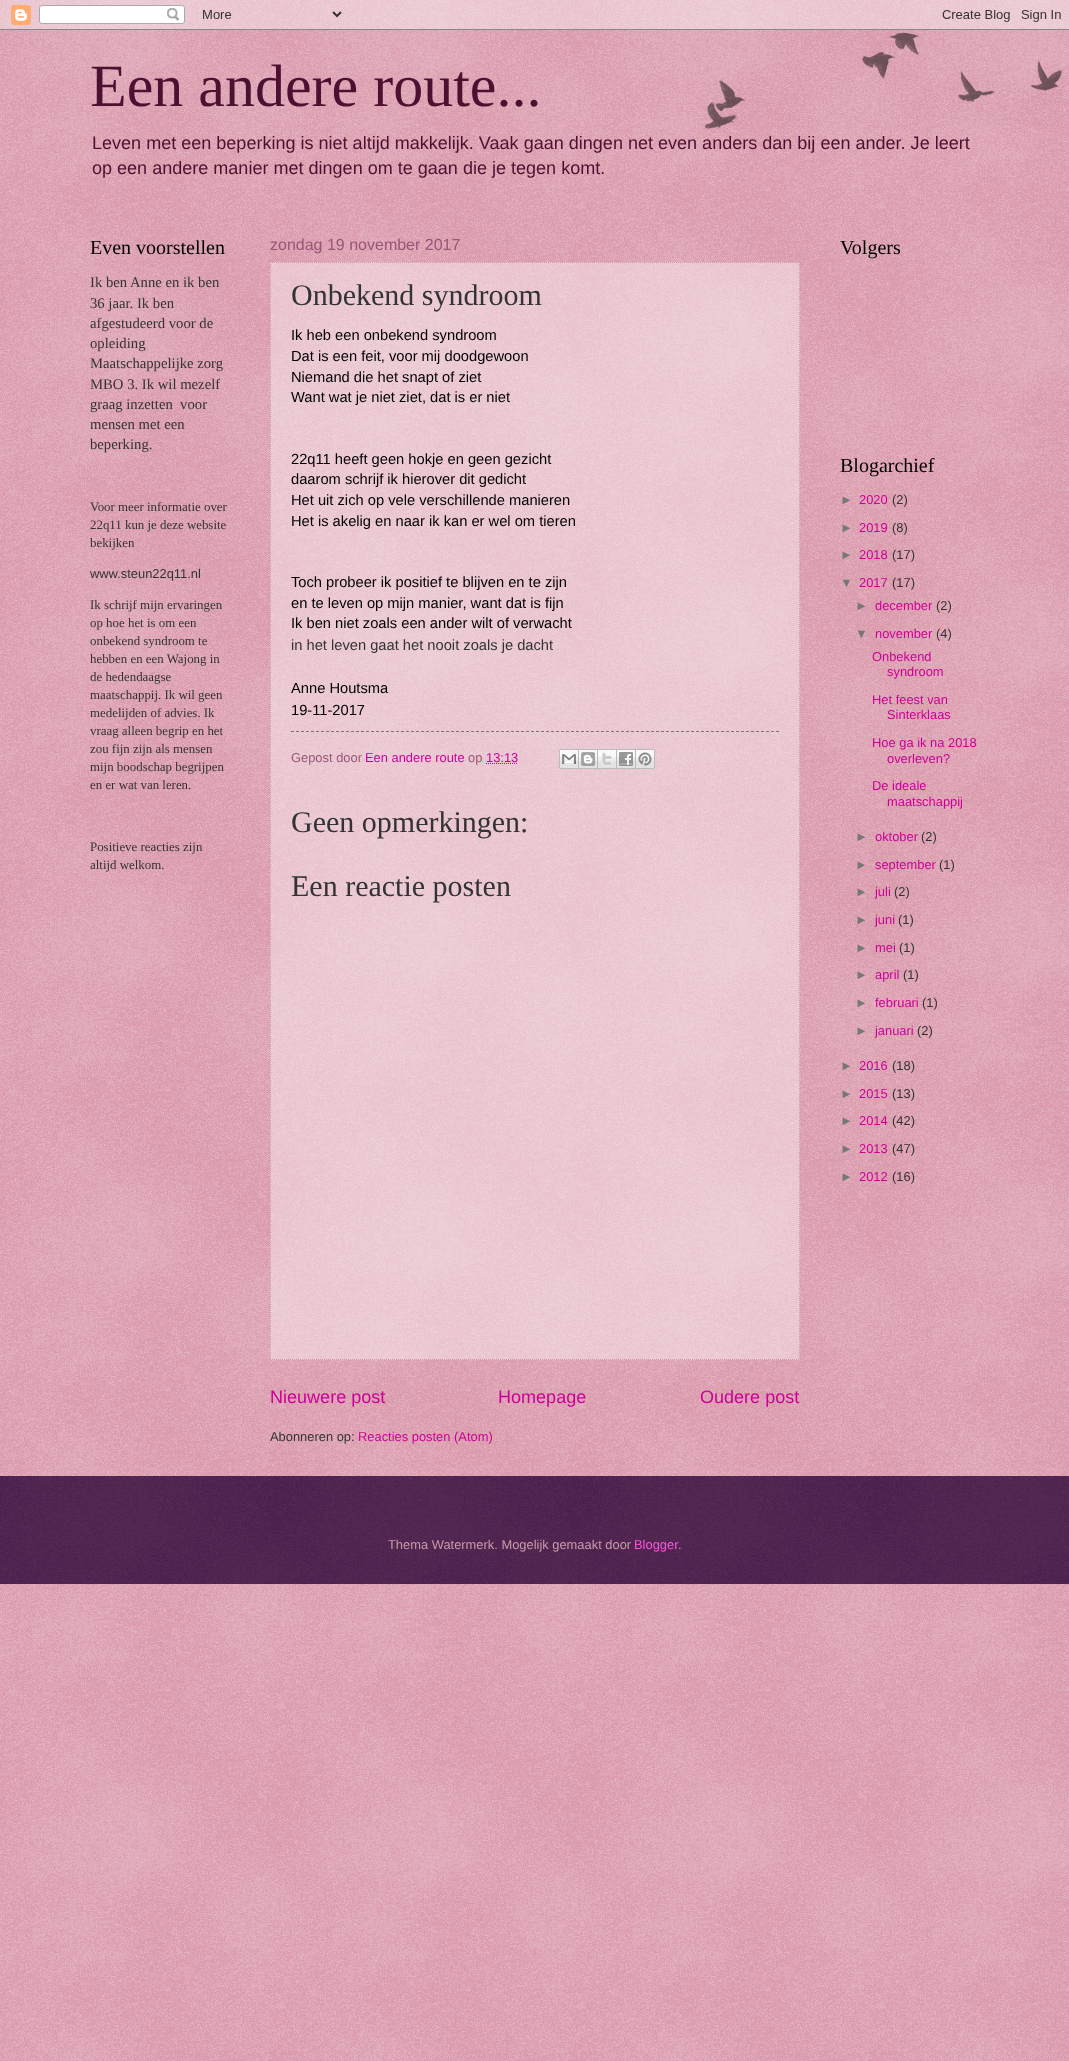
<svg xmlns="http://www.w3.org/2000/svg" width="1069" height="2061" viewBox="0 0 1069 2061">
  <rect width="100%" height="100%" fill="rgb(192,84,114)"/>
  <image x="0" y="0" width="1069" height="2061" href="pic1.png"/>
  <image x="0" y="0" width="1069" height="30" href="pic2.png"/>
  <image x="704" y="32" width="359" height="97" href="pic3.png"/>
  <text x="90" y="106" font-family="Liberation Serif" font-size="60" fill="rgb(76,17,48)">Een andere route...</text>
  <g font-family="Liberation Sans" font-size="18.05" fill="rgb(76,17,48)">
    <text>
      <tspan x="92" y="149">Leven met een beperking is niet altijd makkelijk. Vaak gaan dingen net even anders dan bij een ander. Je leert</tspan>
      <tspan x="92" y="174">op een andere manier met dingen om te gaan die je tegen komt.</tspan>
    </text>
  </g>
  <text x="90" y="254" font-family="Liberation Serif" font-size="20" fill="rgb(0,0,0)">Even voorstellen</text>
  <g font-family="Liberation Serif" font-size="14.7" fill="rgb(51,51,51)">
    <text xml:space="preserve"><tspan x="90" y="287">Ik ben Anne en ik ben</tspan><tspan x="90" y="308">36 jaar. Ik ben</tspan><tspan x="90" y="328">afgestudeerd voor de</tspan><tspan x="90" y="348">opleiding</tspan><tspan x="90" y="368">Maatschappelijke zorg</tspan><tspan x="90" y="389">MBO 3. Ik wil mezelf</tspan><tspan x="90" y="409">graag inzetten  voor</tspan><tspan x="90" y="429">mensen met een</tspan><tspan x="90" y="449">beperking.</tspan></text>
  </g>
  <g font-family="Liberation Serif" font-size="12.9" fill="rgb(51,51,51)">
    <text>
      <tspan x="90" y="511">Voor meer informatie over</tspan>
      <tspan x="90" y="529">22q11 kun je deze website</tspan>
      <tspan x="90" y="547">bekijken</tspan>
    </text>
  </g>
  <text x="90" y="578" font-family="Liberation Sans" font-size="12.9" fill="rgb(51,51,51)">www.steun22q11.nl</text>
  <g font-family="Liberation Serif" font-size="12.9" fill="rgb(51,51,51)">
    <text>
      <tspan x="90" y="609">Ik schrijf mijn ervaringen</tspan>
      <tspan x="90" y="627">op hoe het is om een</tspan>
      <tspan x="90" y="645">onbekend syndroom te</tspan>
      <tspan x="90" y="663">hebben en een Wajong in</tspan>
      <tspan x="90" y="681">de hedendaagse</tspan>
      <tspan x="90" y="699">maatschappij. Ik wil geen</tspan>
      <tspan x="90" y="717">medelijden of advies. Ik</tspan>
      <tspan x="90" y="735">vraag alleen begrip en het</tspan>
      <tspan x="90" y="753">zou fijn zijn als mensen</tspan>
      <tspan x="90" y="771">mijn boodschap begrijpen</tspan>
      <tspan x="90" y="789">en er wat van leren.</tspan>
    </text>
    <text>
      <tspan x="90" y="851">Positieve reacties zijn</tspan>
      <tspan x="90" y="869">altijd welkom.</tspan>
    </text>
  </g>
  <text x="270" y="250" font-family="Liberation Sans" font-size="16" fill="rgb(153,85,119)">zondag 19 november 2017</text>
  <rect x="270" y="262" width="530" height="1098" fill="rgba(255,255,255,0.4)"/>
  <path d="M270 262.5H800" fill="none" stroke="rgb(204,153,169)" stroke-dasharray="1 1"/>
  <path d="M799.5 262V1360" fill="none" stroke="rgb(204,153,169)" stroke-dasharray="1 1"/>
  <path d="M270 1359.5H800" fill="none" stroke="rgb(204,153,169)" stroke-dasharray="1 1"/>
  <path d="M270.5 262V1360" fill="none" stroke="rgb(204,153,169)" stroke-dasharray="1 1"/>
  <text x="291" y="305" font-family="Liberation Serif" font-size="30" fill="rgb(51,51,51)">Onbekend syndroom</text>
  <g font-family="Liberation Sans" font-size="14.7" fill="rgb(0,0,0)">
    <text>
      <tspan x="291" y="340">Ik heb een onbekend syndroom</tspan>
      <tspan x="291" y="361">Dat is een feit, voor mij doodgewoon</tspan>
      <tspan x="291" y="382">Niemand die het snapt of ziet</tspan>
      <tspan x="291" y="402">Want wat je niet ziet, dat is er niet</tspan>
    </text>
    <text>
      <tspan x="291" y="464">22q11 heeft geen hokje en geen gezicht</tspan>
      <tspan x="291" y="484">daarom schrijf ik hierover dit gedicht</tspan>
      <tspan x="291" y="505">Het uit zich op vele verschillende manieren</tspan>
      <tspan x="291" y="526">Het is akelig en naar ik kan er wel om tieren</tspan>
    </text>
    <text>
      <tspan x="291" y="587">Toch probeer ik positief te blijven en te zijn</tspan>
      <tspan x="291" y="608">en te leven op mijn manier, want dat is fijn</tspan>
      <tspan x="291" y="628">Ik ben niet zoals een ander wilt of verwacht</tspan>
    </text>
  </g>
  <text x="291" y="650" font-family="Liberation Sans" font-size="14.7" fill="rgb(51,51,51)">in het leven gaat het nooit zoals je dacht</text>
  <g font-family="Liberation Sans" font-size="14.7" fill="rgb(0,0,0)">
    <text>
      <tspan x="291" y="693">Anne Houtsma</tspan>
      <tspan x="291" y="715">19-11-2017</tspan>
    </text>
  </g>
  <path d="M291 731.5H779" fill="none" stroke="rgb(119,119,119)" stroke-dasharray="3 2"/>
  <text x="291" y="762" font-family="Liberation Sans" font-size="12.9" fill="rgb(153,85,119)">Gepost door</text>
  <text x="365" y="762" font-family="Liberation Sans" font-size="12.9" fill="rgb(204,0,153)">Een andere route</text>
  <text x="468" y="762" font-family="Liberation Sans" font-size="12.9" fill="rgb(153,85,119)">op</text>
  <path d="M486 763.5H518" fill="none" stroke="rgb(204,0,153)" stroke-dasharray="1 1"/>
  <text x="486" y="762" font-family="Liberation Sans" font-size="12.9" fill="rgb(204,0,153)">13:13</text>
  <image x="559" y="749" width="20" height="20" href="pic4.png"/>
  <image x="579" y="749" width="19" height="20" href="pic5.png"/>
  <image x="598" y="749" width="19" height="20" href="pic6.png"/>
  <image x="617" y="749" width="19" height="20" href="pic7.png"/>
  <image x="636" y="749" width="19" height="20" href="pic8.png"/>
  <g font-family="Liberation Serif" font-size="30" fill="rgb(51,51,51)">
    <text x="291" y="832">Geen opmerkingen:</text>
    <text x="291" y="896">Een reactie posten</text>
  </g>
  <g font-family="Liberation Sans" font-size="18.05" fill="rgb(204,0,153)">
    <text x="270" y="1403">Nieuwere post</text>
    <text x="498" y="1403">Homepage</text>
    <text x="700" y="1403">Oudere post</text>
  </g>
  <text x="270" y="1441" font-family="Liberation Sans" font-size="12.9" fill="rgb(51,51,51)">Abonneren op:</text>
  <text x="358" y="1441" font-family="Liberation Sans" font-size="12.9" fill="rgb(204,0,153)">Reacties posten (Atom)</text>
  <g font-family="Liberation Serif" font-size="20" fill="rgb(0,0,0)">
    <text x="840" y="254">Volgers</text>
    <text x="840" y="472">Blogarchief</text>
  </g>
  <text x="840" y="504" font-family="Liberation Sans" font-size="12.9" fill="rgb(119,119,119)">►</text>
  <text x="859" y="504" font-family="Liberation Sans" font-size="12.9" fill="rgb(204,0,153)">2020</text>
  <text x="892" y="504" font-family="Liberation Sans" font-size="12.9" fill="rgb(51,51,51)">(2)</text>
  <text x="840" y="532" font-family="Liberation Sans" font-size="12.9" fill="rgb(119,119,119)">►</text>
  <text x="859" y="532" font-family="Liberation Sans" font-size="12.9" fill="rgb(204,0,153)">2019</text>
  <text x="892" y="532" font-family="Liberation Sans" font-size="12.9" fill="rgb(51,51,51)">(8)</text>
  <text x="840" y="559" font-family="Liberation Sans" font-size="12.9" fill="rgb(119,119,119)">►</text>
  <text x="859" y="559" font-family="Liberation Sans" font-size="12.9" fill="rgb(204,0,153)">2018</text>
  <text x="892" y="559" font-family="Liberation Sans" font-size="12.9" fill="rgb(51,51,51)">(17)</text>
  <text x="840" y="587" font-family="Liberation Sans" font-size="12.9" fill="rgb(119,119,119)">▼</text>
  <text x="859" y="587" font-family="Liberation Sans" font-size="12.9" fill="rgb(204,0,153)">2017</text>
  <text x="892" y="587" font-family="Liberation Sans" font-size="12.9" fill="rgb(51,51,51)">(17)</text>
  <text x="855" y="610" font-family="Liberation Sans" font-size="12.9" fill="rgb(119,119,119)">►</text>
  <text x="875" y="610" font-family="Liberation Sans" font-size="12.9" fill="rgb(204,0,153)">december</text>
  <text x="936" y="610" font-family="Liberation Sans" font-size="12.9" fill="rgb(51,51,51)">(2)</text>
  <text x="855" y="638" font-family="Liberation Sans" font-size="12.9" fill="rgb(119,119,119)">▼</text>
  <text x="875" y="638" font-family="Liberation Sans" font-size="12.9" fill="rgb(204,0,153)">november</text>
  <text x="936" y="638" font-family="Liberation Sans" font-size="12.9" fill="rgb(51,51,51)">(4)</text>
  <g font-family="Liberation Sans" font-size="12.9" fill="rgb(204,0,153)">
    <text x="872" y="661">Onbekend</text>
    <text x="887" y="676">syndroom</text>
    <text x="872" y="704">Het feest van</text>
    <text x="887" y="719">Sinterklaas</text>
    <text x="872" y="747">Hoe ga ik na 2018</text>
    <text x="887" y="763">overleven?</text>
    <text x="872" y="790">De ideale</text>
    <text x="887" y="806">maatschappij</text>
  </g>
  <text x="855" y="841" font-family="Liberation Sans" font-size="12.9" fill="rgb(119,119,119)">►</text>
  <text x="875" y="841" font-family="Liberation Sans" font-size="12.9" fill="rgb(204,0,153)">oktober</text>
  <text x="921" y="841" font-family="Liberation Sans" font-size="12.9" fill="rgb(51,51,51)">(2)</text>
  <text x="855" y="869" font-family="Liberation Sans" font-size="12.9" fill="rgb(119,119,119)">►</text>
  <text x="875" y="869" font-family="Liberation Sans" font-size="12.9" fill="rgb(204,0,153)">september</text>
  <text x="939" y="869" font-family="Liberation Sans" font-size="12.9" fill="rgb(51,51,51)">(1)</text>
  <text x="855" y="896" font-family="Liberation Sans" font-size="12.9" fill="rgb(119,119,119)">►</text>
  <text x="875" y="896" font-family="Liberation Sans" font-size="12.9" fill="rgb(204,0,153)">juli</text>
  <text x="894" y="896" font-family="Liberation Sans" font-size="12.9" fill="rgb(51,51,51)">(2)</text>
  <text x="855" y="924" font-family="Liberation Sans" font-size="12.9" fill="rgb(119,119,119)">►</text>
  <text x="875" y="924" font-family="Liberation Sans" font-size="12.9" fill="rgb(204,0,153)">juni</text>
  <text x="898" y="924" font-family="Liberation Sans" font-size="12.9" fill="rgb(51,51,51)">(1)</text>
  <text x="855" y="952" font-family="Liberation Sans" font-size="12.9" fill="rgb(119,119,119)">►</text>
  <text x="875" y="952" font-family="Liberation Sans" font-size="12.9" fill="rgb(204,0,153)">mei</text>
  <text x="899" y="952" font-family="Liberation Sans" font-size="12.9" fill="rgb(51,51,51)">(1)</text>
  <text x="855" y="979" font-family="Liberation Sans" font-size="12.9" fill="rgb(119,119,119)">►</text>
  <text x="875" y="979" font-family="Liberation Sans" font-size="12.9" fill="rgb(204,0,153)">april</text>
  <text x="903" y="979" font-family="Liberation Sans" font-size="12.9" fill="rgb(51,51,51)">(1)</text>
  <text x="855" y="1007" font-family="Liberation Sans" font-size="12.9" fill="rgb(119,119,119)">►</text>
  <text x="875" y="1007" font-family="Liberation Sans" font-size="12.9" fill="rgb(204,0,153)">februari</text>
  <text x="922" y="1007" font-family="Liberation Sans" font-size="12.9" fill="rgb(51,51,51)">(1)</text>
  <text x="855" y="1035" font-family="Liberation Sans" font-size="12.9" fill="rgb(119,119,119)">►</text>
  <text x="875" y="1035" font-family="Liberation Sans" font-size="12.9" fill="rgb(204,0,153)">januari</text>
  <text x="917" y="1035" font-family="Liberation Sans" font-size="12.9" fill="rgb(51,51,51)">(2)</text>
  <text x="840" y="1070" font-family="Liberation Sans" font-size="12.9" fill="rgb(119,119,119)">►</text>
  <text x="859" y="1070" font-family="Liberation Sans" font-size="12.9" fill="rgb(204,0,153)">2016</text>
  <text x="892" y="1070" font-family="Liberation Sans" font-size="12.9" fill="rgb(51,51,51)">(18)</text>
  <text x="840" y="1098" font-family="Liberation Sans" font-size="12.9" fill="rgb(119,119,119)">►</text>
  <text x="859" y="1098" font-family="Liberation Sans" font-size="12.9" fill="rgb(204,0,153)">2015</text>
  <text x="892" y="1098" font-family="Liberation Sans" font-size="12.9" fill="rgb(51,51,51)">(13)</text>
  <text x="840" y="1125" font-family="Liberation Sans" font-size="12.9" fill="rgb(119,119,119)">►</text>
  <text x="859" y="1125" font-family="Liberation Sans" font-size="12.9" fill="rgb(204,0,153)">2014</text>
  <text x="892" y="1125" font-family="Liberation Sans" font-size="12.9" fill="rgb(51,51,51)">(42)</text>
  <text x="840" y="1153" font-family="Liberation Sans" font-size="12.9" fill="rgb(119,119,119)">►</text>
  <text x="859" y="1153" font-family="Liberation Sans" font-size="12.9" fill="rgb(204,0,153)">2013</text>
  <text x="892" y="1153" font-family="Liberation Sans" font-size="12.9" fill="rgb(51,51,51)">(47)</text>
  <text x="840" y="1181" font-family="Liberation Sans" font-size="12.9" fill="rgb(119,119,119)">►</text>
  <text x="859" y="1181" font-family="Liberation Sans" font-size="12.9" fill="rgb(204,0,153)">2012</text>
  <text x="892" y="1181" font-family="Liberation Sans" font-size="12.9" fill="rgb(51,51,51)">(16)</text>
  <rect x="0" y="1476" width="1069" height="108" fill="rgb(51,0,51)"/>
  <image x="0" y="1476" width="1069" height="108" href="pic9.png"/>
  <text x="388" y="1549" font-family="Liberation Sans" font-size="12.9" fill="rgb(204,153,169)">Thema Watermerk. Mogelijk gemaakt door</text>
  <text x="634" y="1549" font-family="Liberation Sans" font-size="12.9" fill="rgb(255,85,221)">Blogger</text>
  <text x="678" y="1549" font-family="Liberation Sans" font-size="12.9" fill="rgb(204,153,169)">.</text>
</svg>
